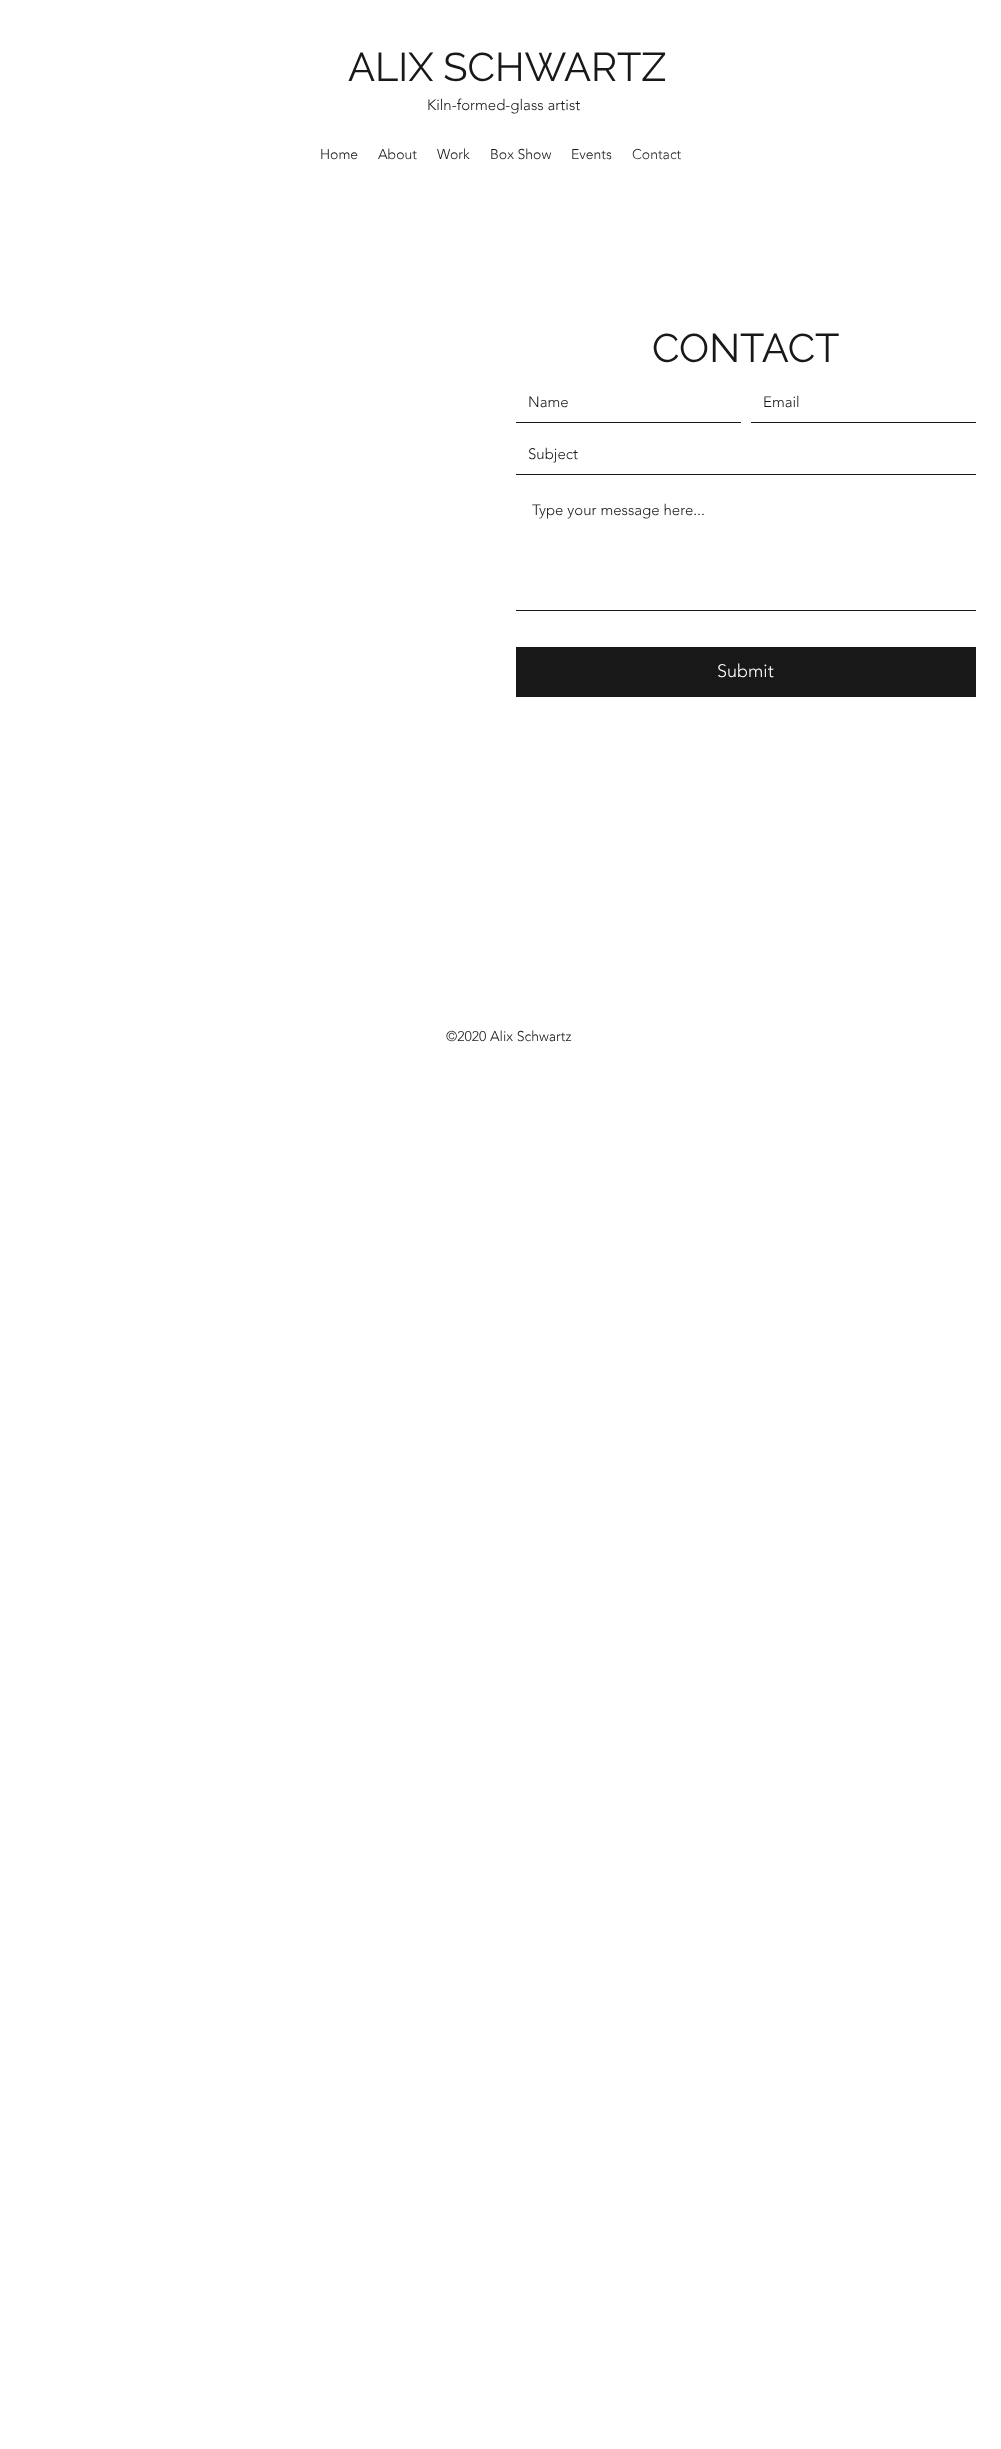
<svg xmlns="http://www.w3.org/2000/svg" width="1001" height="2449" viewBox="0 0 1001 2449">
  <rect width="100%" height="100%" fill="rgb(255,255,255)"/>
  <text x="348" y="81" font-family="Raleway" font-size="40" fill="rgb(24,24,24)">ALIX SCHWARTZ</text>
  <text x="427" y="110" font-family="'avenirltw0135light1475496'" font-size="15" font-weight="300" fill="rgb(24,24,24)">Kiln-formed-glass artist</text>
  <g font-family="'avenirltw0135light1475496'" font-size="14" font-weight="300" fill="rgb(24,24,24)">
    <text x="320" y="159">Home</text>
    <text x="378" y="159">About</text>
    <text x="437" y="159">Work</text>
    <text x="490" y="159">Box Show</text>
    <text x="571" y="159">Events</text>
  </g>
  <text x="632" y="159" font-family="'avenirltw0135light1475496'" font-size="14" font-weight="300" fill="rgb(41,41,41)">Contact</text>
  <text x="652" y="362" font-family="Raleway" font-size="40" fill="rgb(24,24,24)">CONTACT</text>
  <rect x="516" y="422" width="225" height="1" fill="rgb(24,24,24)"/>
  <text x="528" y="407" font-family="'avenirltw0135light1475496'" font-size="15" font-weight="300" fill="rgb(24,24,24)">Name</text>
  <rect x="751" y="422" width="225" height="1" fill="rgb(24,24,24)"/>
  <text x="763" y="407" font-family="'avenirltw0135light1475496'" font-size="15" font-weight="300" fill="rgb(24,24,24)">Email</text>
  <rect x="516" y="474" width="460" height="1" fill="rgb(24,24,24)"/>
  <text x="528" y="459" font-family="'avenirltw0135light1475496'" font-size="15" font-weight="300" fill="rgb(24,24,24)">Subject</text>
  <rect x="516" y="610" width="460" height="1" fill="rgb(24,24,24)"/>
  <text x="532" y="515" font-family="'avenirltw0135light1475496'" font-size="15" font-weight="300" fill="rgb(24,24,24)">Type your message here...</text>
  <rect x="516" y="647" width="460" height="50" fill="rgb(24,24,24)"/>
  <text x="717" y="677" font-family="'avenirltw0135light1475496'" font-size="18" font-weight="300" fill="rgb(255,255,255)">Submit</text>
  <text x="446" y="1041" font-family="'avenirltw0135light1475496'" font-size="14" font-weight="300" fill="rgb(24,24,24)">©2020 Alix Schwartz</text>
</svg>
